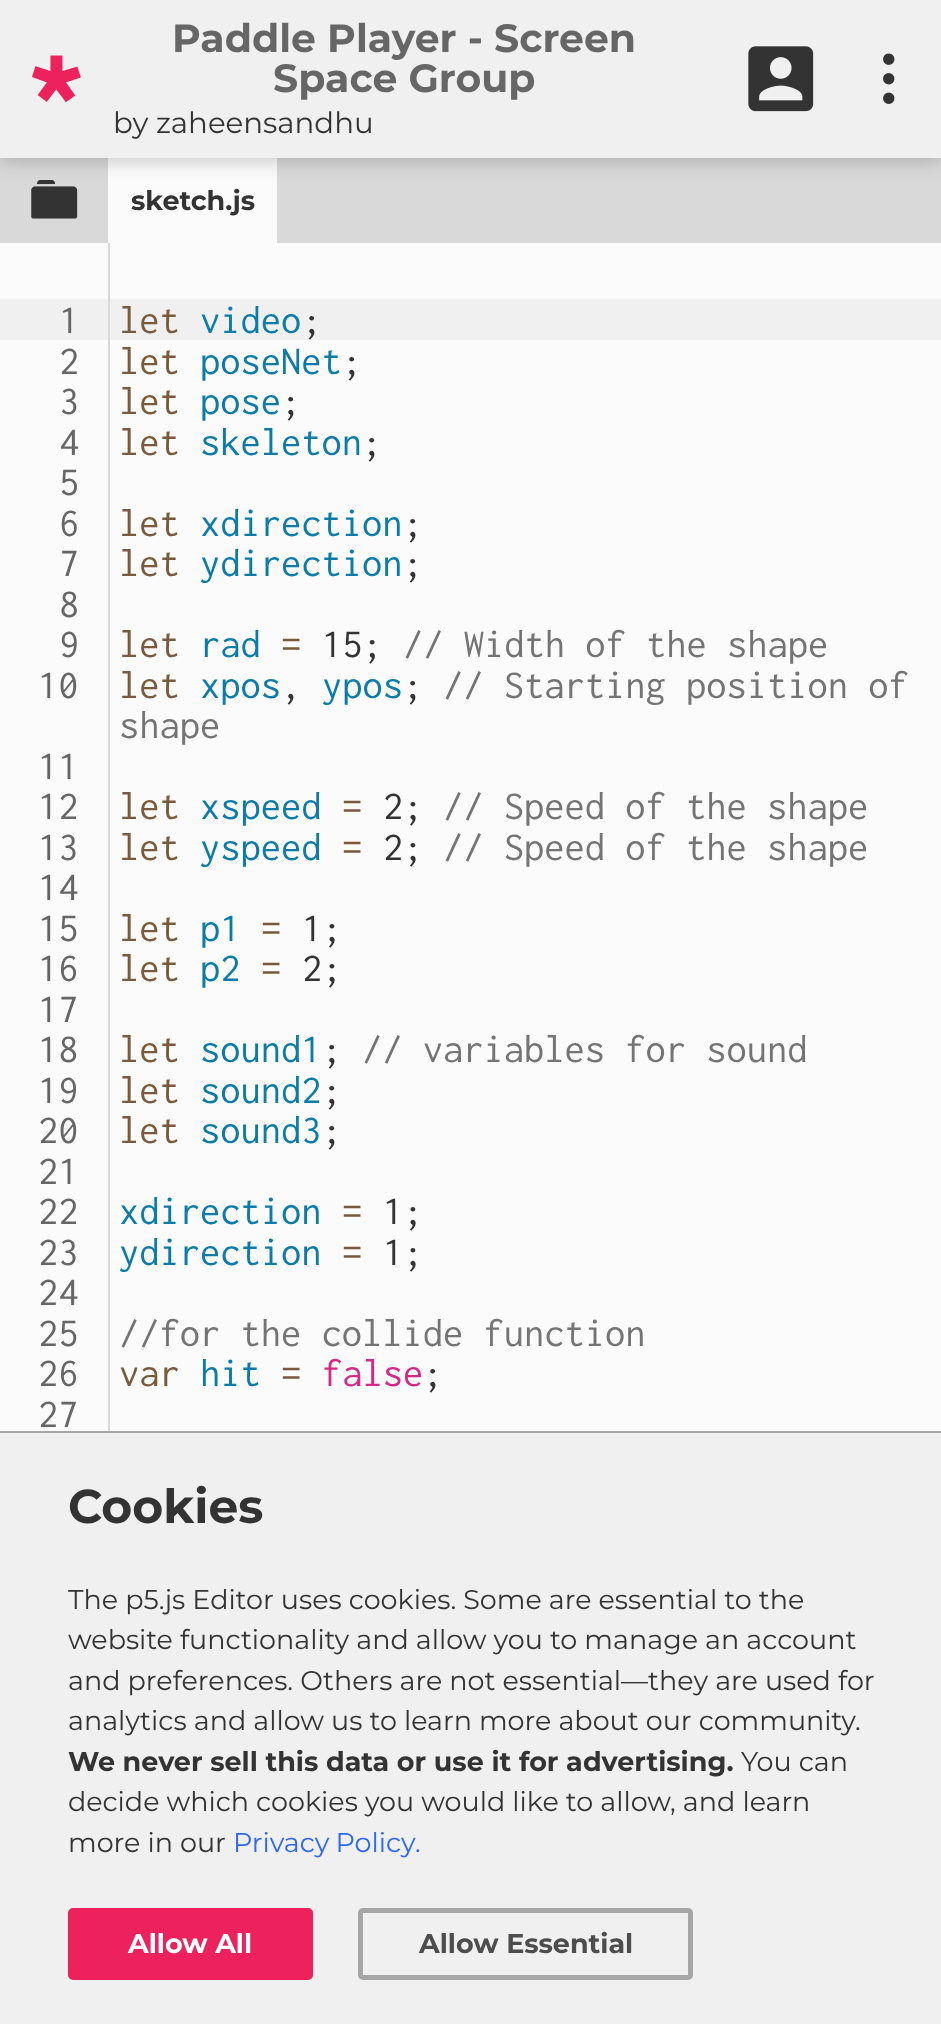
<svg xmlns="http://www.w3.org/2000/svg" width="941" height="2024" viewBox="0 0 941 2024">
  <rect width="100%" height="100%" fill="rgb(251,251,251)"/>
  <rect x="0" y="158" width="941" height="85" fill="rgb(217,217,217)"/>
  <image x="31" y="180" width="47" height="39" href="pic4.png"/>
  <rect x="108" y="158" width="169" height="85" fill="rgb(251,251,251)"/>
  <rect x="0" y="5" width="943" height="157" fill="rgba(0,0,0,0.19)" filter="blur(9px)"/>
  <rect x="0" y="0" width="941" height="158" fill="rgb(240,240,240)"/>
  <image x="32" y="55" width="49" height="48" href="pic1.png"/>
  <g font-family="Montserrat" font-size="39.4" font-weight="bold" fill="rgb(102,102,102)">
    <text x="172" y="52">Paddle Player - Screen</text>
    <text x="273" y="92">Space Group</text>
  </g>
  <text x="113" y="133" font-family="Montserrat" font-size="29.25" fill="rgb(51,51,51)">by zaheensandhu</text>
  <image x="748" y="46" width="66" height="66" href="pic2.png"/>
  <image x="883" y="53" width="12" height="51" href="pic3.png"/>
  <text x="131" y="210" font-family="Montserrat" font-size="27" font-weight="bold" fill="rgb(51,51,51)">sketch.js</text>
  <rect x="108" y="243" width="2" height="1188" fill="rgb(217,217,217)"/>
  <rect x="0" y="299" width="108" height="41" fill="rgb(240,240,240)"/>
  <rect x="110" y="299" width="831" height="41" fill="rgb(240,240,240)"/>
  <text x="59" y="333" font-family="Inconsolata" font-size="40.5" fill="rgb(102,102,102)">1</text>
  <text x="119" y="333" font-family="Inconsolata" font-size="40.5" fill="rgb(122,90,58)">let</text>
  <text x="200" y="333" font-family="Inconsolata" font-size="40.5" fill="rgb(11,124,169)">video</text>
  <text x="302" y="333" font-family="Inconsolata" font-size="40.5" fill="rgb(51,51,51)">;</text>
  <text x="59" y="374" font-family="Inconsolata" font-size="40.5" fill="rgb(102,102,102)">2</text>
  <text x="119" y="374" font-family="Inconsolata" font-size="40.5" fill="rgb(122,90,58)">let</text>
  <text x="200" y="374" font-family="Inconsolata" font-size="40.5" fill="rgb(11,124,169)">poseNet</text>
  <text x="342" y="374" font-family="Inconsolata" font-size="40.5" fill="rgb(51,51,51)">;</text>
  <text x="59" y="414" font-family="Inconsolata" font-size="40.5" fill="rgb(102,102,102)">3</text>
  <text x="119" y="414" font-family="Inconsolata" font-size="40.5" fill="rgb(122,90,58)">let</text>
  <text x="200" y="414" font-family="Inconsolata" font-size="40.5" fill="rgb(11,124,169)">pose</text>
  <text x="281" y="414" font-family="Inconsolata" font-size="40.5" fill="rgb(51,51,51)">;</text>
  <text x="59" y="455" font-family="Inconsolata" font-size="40.5" fill="rgb(102,102,102)">4</text>
  <text x="119" y="455" font-family="Inconsolata" font-size="40.5" fill="rgb(122,90,58)">let</text>
  <text x="200" y="455" font-family="Inconsolata" font-size="40.5" fill="rgb(11,124,169)">skeleton</text>
  <text x="362" y="455" font-family="Inconsolata" font-size="40.5" fill="rgb(51,51,51)">;</text>
  <g font-family="Inconsolata" font-size="40.5" fill="rgb(102,102,102)">
    <text>
      <tspan x="59" y="495">5</tspan>
      <tspan x="59" y="536">6</tspan>
    </text>
  </g>
  <text x="119" y="536" font-family="Inconsolata" font-size="40.5" fill="rgb(122,90,58)">let</text>
  <text x="200" y="536" font-family="Inconsolata" font-size="40.5" fill="rgb(11,124,169)">xdirection</text>
  <text x="403" y="536" font-family="Inconsolata" font-size="40.5" fill="rgb(51,51,51)">;</text>
  <text x="59" y="576" font-family="Inconsolata" font-size="40.5" fill="rgb(102,102,102)">7</text>
  <text x="119" y="576" font-family="Inconsolata" font-size="40.5" fill="rgb(122,90,58)">let</text>
  <text x="200" y="576" font-family="Inconsolata" font-size="40.5" fill="rgb(11,124,169)">ydirection</text>
  <text x="403" y="576" font-family="Inconsolata" font-size="40.5" fill="rgb(51,51,51)">;</text>
  <g font-family="Inconsolata" font-size="40.5" fill="rgb(102,102,102)">
    <text>
      <tspan x="59" y="617">8</tspan>
      <tspan x="59" y="657">9</tspan>
    </text>
  </g>
  <text x="119" y="657" font-family="Inconsolata" font-size="40.5" fill="rgb(122,90,58)">let</text>
  <text x="200" y="657" font-family="Inconsolata" font-size="40.5" fill="rgb(11,124,169)">rad</text>
  <text x="281" y="657" font-family="Inconsolata" font-size="40.5" fill="rgb(122,90,58)">=</text>
  <text x="322" y="657" font-family="Inconsolata" font-size="40.5" fill="rgb(51,51,51)">15;</text>
  <text x="403" y="657" font-family="Inconsolata" font-size="40.5" fill="rgb(116,116,116)">// Width of the shape</text>
  <text x="38" y="698" font-family="Inconsolata" font-size="40.5" fill="rgb(102,102,102)">10</text>
  <text x="119" y="698" font-family="Inconsolata" font-size="40.5" fill="rgb(122,90,58)">let</text>
  <text x="200" y="698" font-family="Inconsolata" font-size="40.5" fill="rgb(11,124,169)">xpos</text>
  <text x="281" y="698" font-family="Inconsolata" font-size="40.5" fill="rgb(51,51,51)">,</text>
  <text x="322" y="698" font-family="Inconsolata" font-size="40.5" fill="rgb(11,124,169)">ypos</text>
  <text x="403" y="698" font-family="Inconsolata" font-size="40.5" fill="rgb(51,51,51)">;</text>
  <g font-family="Inconsolata" font-size="40.5" fill="rgb(116,116,116)">
    <text x="443" y="698">// Starting position of</text>
    <text x="119" y="738">shape</text>
  </g>
  <g font-family="Inconsolata" font-size="40.5" fill="rgb(102,102,102)">
    <text>
      <tspan x="38" y="779">11</tspan>
      <tspan x="38" y="819">12</tspan>
    </text>
  </g>
  <text x="119" y="819" font-family="Inconsolata" font-size="40.5" fill="rgb(122,90,58)">let</text>
  <text x="200" y="819" font-family="Inconsolata" font-size="40.5" fill="rgb(11,124,169)">xspeed</text>
  <text x="342" y="819" font-family="Inconsolata" font-size="40.5" fill="rgb(122,90,58)">=</text>
  <text x="383" y="819" font-family="Inconsolata" font-size="40.5" fill="rgb(51,51,51)">2;</text>
  <text x="443" y="819" font-family="Inconsolata" font-size="40.5" fill="rgb(116,116,116)">// Speed of the shape</text>
  <text x="38" y="860" font-family="Inconsolata" font-size="40.5" fill="rgb(102,102,102)">13</text>
  <text x="119" y="860" font-family="Inconsolata" font-size="40.5" fill="rgb(122,90,58)">let</text>
  <text x="200" y="860" font-family="Inconsolata" font-size="40.5" fill="rgb(11,124,169)">yspeed</text>
  <text x="342" y="860" font-family="Inconsolata" font-size="40.5" fill="rgb(122,90,58)">=</text>
  <text x="383" y="860" font-family="Inconsolata" font-size="40.5" fill="rgb(51,51,51)">2;</text>
  <text x="443" y="860" font-family="Inconsolata" font-size="40.5" fill="rgb(116,116,116)">// Speed of the shape</text>
  <g font-family="Inconsolata" font-size="40.5" fill="rgb(102,102,102)">
    <text>
      <tspan x="38" y="900">14</tspan>
      <tspan x="38" y="941">15</tspan>
    </text>
  </g>
  <text x="119" y="941" font-family="Inconsolata" font-size="40.5" fill="rgb(122,90,58)">let</text>
  <text x="200" y="941" font-family="Inconsolata" font-size="40.5" fill="rgb(11,124,169)">p1</text>
  <text x="261" y="941" font-family="Inconsolata" font-size="40.5" fill="rgb(122,90,58)">=</text>
  <text x="302" y="941" font-family="Inconsolata" font-size="40.5" fill="rgb(51,51,51)">1;</text>
  <text x="38" y="981" font-family="Inconsolata" font-size="40.5" fill="rgb(102,102,102)">16</text>
  <text x="119" y="981" font-family="Inconsolata" font-size="40.5" fill="rgb(122,90,58)">let</text>
  <text x="200" y="981" font-family="Inconsolata" font-size="40.5" fill="rgb(11,124,169)">p2</text>
  <text x="261" y="981" font-family="Inconsolata" font-size="40.5" fill="rgb(122,90,58)">=</text>
  <text x="302" y="981" font-family="Inconsolata" font-size="40.5" fill="rgb(51,51,51)">2;</text>
  <g font-family="Inconsolata" font-size="40.5" fill="rgb(102,102,102)">
    <text>
      <tspan x="38" y="1022">17</tspan>
      <tspan x="38" y="1062">18</tspan>
    </text>
  </g>
  <text x="119" y="1062" font-family="Inconsolata" font-size="40.5" fill="rgb(122,90,58)">let</text>
  <text x="200" y="1062" font-family="Inconsolata" font-size="40.5" fill="rgb(11,124,169)">sound1</text>
  <text x="322" y="1062" font-family="Inconsolata" font-size="40.5" fill="rgb(51,51,51)">;</text>
  <text x="362" y="1062" font-family="Inconsolata" font-size="40.5" fill="rgb(116,116,116)">// variables for sound</text>
  <text x="38" y="1103" font-family="Inconsolata" font-size="40.5" fill="rgb(102,102,102)">19</text>
  <text x="119" y="1103" font-family="Inconsolata" font-size="40.5" fill="rgb(122,90,58)">let</text>
  <text x="200" y="1103" font-family="Inconsolata" font-size="40.5" fill="rgb(11,124,169)">sound2</text>
  <text x="322" y="1103" font-family="Inconsolata" font-size="40.5" fill="rgb(51,51,51)">;</text>
  <text x="38" y="1143" font-family="Inconsolata" font-size="40.5" fill="rgb(102,102,102)">20</text>
  <text x="119" y="1143" font-family="Inconsolata" font-size="40.5" fill="rgb(122,90,58)">let</text>
  <text x="200" y="1143" font-family="Inconsolata" font-size="40.5" fill="rgb(11,124,169)">sound3</text>
  <text x="322" y="1143" font-family="Inconsolata" font-size="40.5" fill="rgb(51,51,51)">;</text>
  <g font-family="Inconsolata" font-size="40.5" fill="rgb(102,102,102)">
    <text>
      <tspan x="38" y="1184">21</tspan>
      <tspan x="38" y="1224">22</tspan>
    </text>
  </g>
  <text x="119" y="1224" font-family="Inconsolata" font-size="40.5" fill="rgb(11,124,169)">xdirection</text>
  <text x="342" y="1224" font-family="Inconsolata" font-size="40.5" fill="rgb(122,90,58)">=</text>
  <text x="383" y="1224" font-family="Inconsolata" font-size="40.5" fill="rgb(51,51,51)">1;</text>
  <text x="38" y="1265" font-family="Inconsolata" font-size="40.5" fill="rgb(102,102,102)">23</text>
  <text x="119" y="1265" font-family="Inconsolata" font-size="40.5" fill="rgb(11,124,169)">ydirection</text>
  <text x="342" y="1265" font-family="Inconsolata" font-size="40.5" fill="rgb(122,90,58)">=</text>
  <text x="383" y="1265" font-family="Inconsolata" font-size="40.5" fill="rgb(51,51,51)">1;</text>
  <g font-family="Inconsolata" font-size="40.5" fill="rgb(102,102,102)">
    <text>
      <tspan x="38" y="1305">24</tspan>
      <tspan x="38" y="1346">25</tspan>
    </text>
  </g>
  <text x="119" y="1346" font-family="Inconsolata" font-size="40.5" fill="rgb(116,116,116)">//for the collide function</text>
  <text x="38" y="1386" font-family="Inconsolata" font-size="40.5" fill="rgb(102,102,102)">26</text>
  <text x="119" y="1386" font-family="Inconsolata" font-size="40.5" fill="rgb(122,90,58)">var</text>
  <text x="200" y="1386" font-family="Inconsolata" font-size="40.5" fill="rgb(11,124,169)">hit</text>
  <text x="281" y="1386" font-family="Inconsolata" font-size="40.5" fill="rgb(122,90,58)">=</text>
  <text x="322" y="1386" font-family="Inconsolata" font-size="40.5" fill="rgb(213,40,137)">false</text>
  <text x="423" y="1386" font-family="Inconsolata" font-size="40.5" fill="rgb(51,51,51)">;</text>
  <text x="38" y="1427" font-family="Inconsolata" font-size="40.5" fill="rgb(102,102,102)">27</text>
  <rect x="0" y="1433" width="941" height="591" fill="rgb(240,240,240)"/>
  <rect x="0" y="1431" width="941" height="2" fill="rgb(166,166,166)"/>
  <text x="68" y="1523" font-family="Montserrat" font-size="47.25" font-weight="bold" fill="rgb(51,51,51)">Cookies</text>
  <g font-family="Montserrat" font-size="27" fill="rgb(51,51,51)">
    <text>
      <tspan x="68" y="1609">The p5.js Editor uses cookies. Some are essential to the</tspan>
      <tspan x="68" y="1649">website functionality and allow you to manage an account</tspan>
      <tspan x="68" y="1690">and preferences. Others are not essential—they are used for</tspan>
      <tspan x="68" y="1730">analytics and allow us to learn more about our community.</tspan>
    </text>
  </g>
  <text x="68" y="1771" font-family="Montserrat" font-size="27" font-weight="bold" fill="rgb(51,51,51)">We never sell this data or use it for advertising.</text>
  <g font-family="Montserrat" font-size="27" fill="rgb(51,51,51)">
    <text x="741" y="1771">You can</text>
    <text>
      <tspan x="68" y="1811">decide which cookies you would like to allow, and learn</tspan>
      <tspan x="68" y="1852">more in our</tspan>
    </text>
  </g>
  <g font-family="Montserrat" font-size="27" fill="rgb(45,103,246)">
    <text x="233" y="1852" word-spacing="-1">Privacy Policy</text>
    <text x="415" y="1852">.</text>
  </g>
  <rect x="70.5" y="1910.5" width="240" height="67" rx="2.5" fill="rgb(237,34,93)" stroke="rgb(237,34,93)" stroke-width="5"/>
  <text x="128" y="1953" font-family="Montserrat" font-size="27" font-weight="bold" fill="rgb(255,255,255)">Allow All</text>
  <rect x="360.5" y="1910.5" width="330" height="67" rx="2.5" fill="none" stroke="rgb(166,166,166)" stroke-width="5"/>
  <text x="419" y="1953" font-family="Montserrat" font-size="27" font-weight="bold" fill="rgb(77,77,77)">Allow Essential</text>
</svg>
